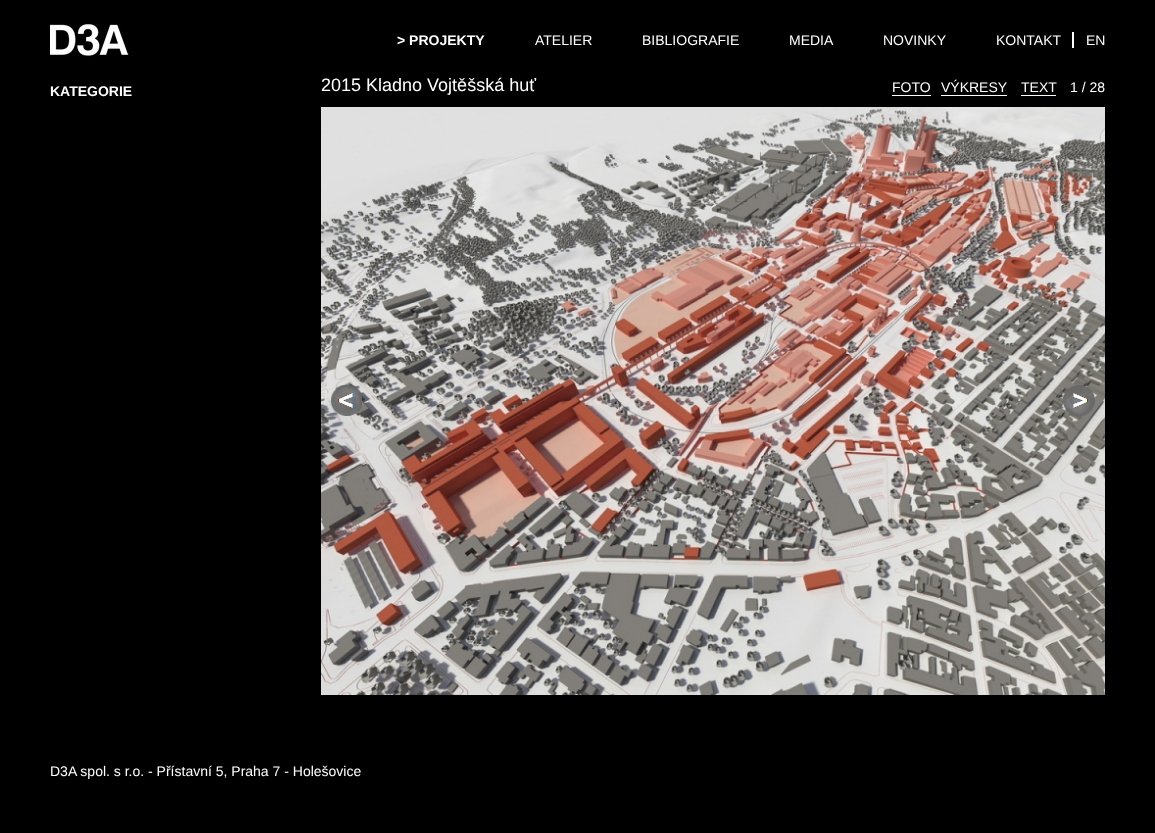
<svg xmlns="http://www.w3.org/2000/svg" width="1155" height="833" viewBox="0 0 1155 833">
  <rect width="100%" height="100%" fill="rgb(0,0,0)"/>
  <image x="50" y="24" width="79" height="33" href="pic1.png"/>
  <text x="397" y="45" font-family="Liberation Sans" font-size="14" font-weight="bold" fill="rgb(255,255,255)">&gt; PROJEKTY</text>
  <g font-family="Liberation Sans" font-size="14" fill="rgb(255,255,255)">
    <text x="535" y="45">ATELIER</text>
    <text x="642" y="45">BIBLIOGRAFIE</text>
    <text x="789" y="45">MEDIA</text>
    <text x="883" y="45">NOVINKY</text>
    <text x="996" y="45">KONTAKT</text>
    <text x="1086" y="45">EN</text>
  </g>
  <rect x="1072" y="32" width="2" height="16" fill="rgb(255,255,255)"/>
  <text x="50" y="96" font-family="Liberation Sans" font-size="14" font-weight="bold" fill="rgb(255,255,255)">KATEGORIE</text>
  <text x="321" y="91" font-family="Liberation Sans" font-size="18" fill="rgb(255,255,255)">2015 Kladno Vojtěšská huť</text>
  <text x="892" y="92" font-family="Liberation Sans" font-size="14" fill="rgb(255,255,255)">FOTO</text>
  <rect x="892" y="95" width="39" height="1" fill="rgb(255,255,255)"/>
  <text x="941" y="92" font-family="Liberation Sans" font-size="14" fill="rgb(255,255,255)">VÝKRESY</text>
  <rect x="941" y="95" width="66" height="1" fill="rgb(255,255,255)"/>
  <text x="1021" y="92" font-family="Liberation Sans" font-size="14" fill="rgb(255,255,255)">TEXT</text>
  <rect x="1021" y="95" width="35" height="1" fill="rgb(255,255,255)"/>
  <text x="1070" y="92" font-family="Liberation Sans" font-size="14" fill="rgb(255,255,255)">1 / 28</text>
  <image x="321" y="107" width="784" height="588" href="pic2.png"/>
  <image x="331" y="385" width="31" height="31" href="pic3.png"/>
  <image x="1063" y="385" width="32" height="31" href="pic4.png"/>
  <text x="50" y="776" font-family="Liberation Sans" font-size="14" fill="rgb(255,255,255)">D3A spol. s r.o. - Přístavní 5, Praha 7 - Holešovice</text>
</svg>
